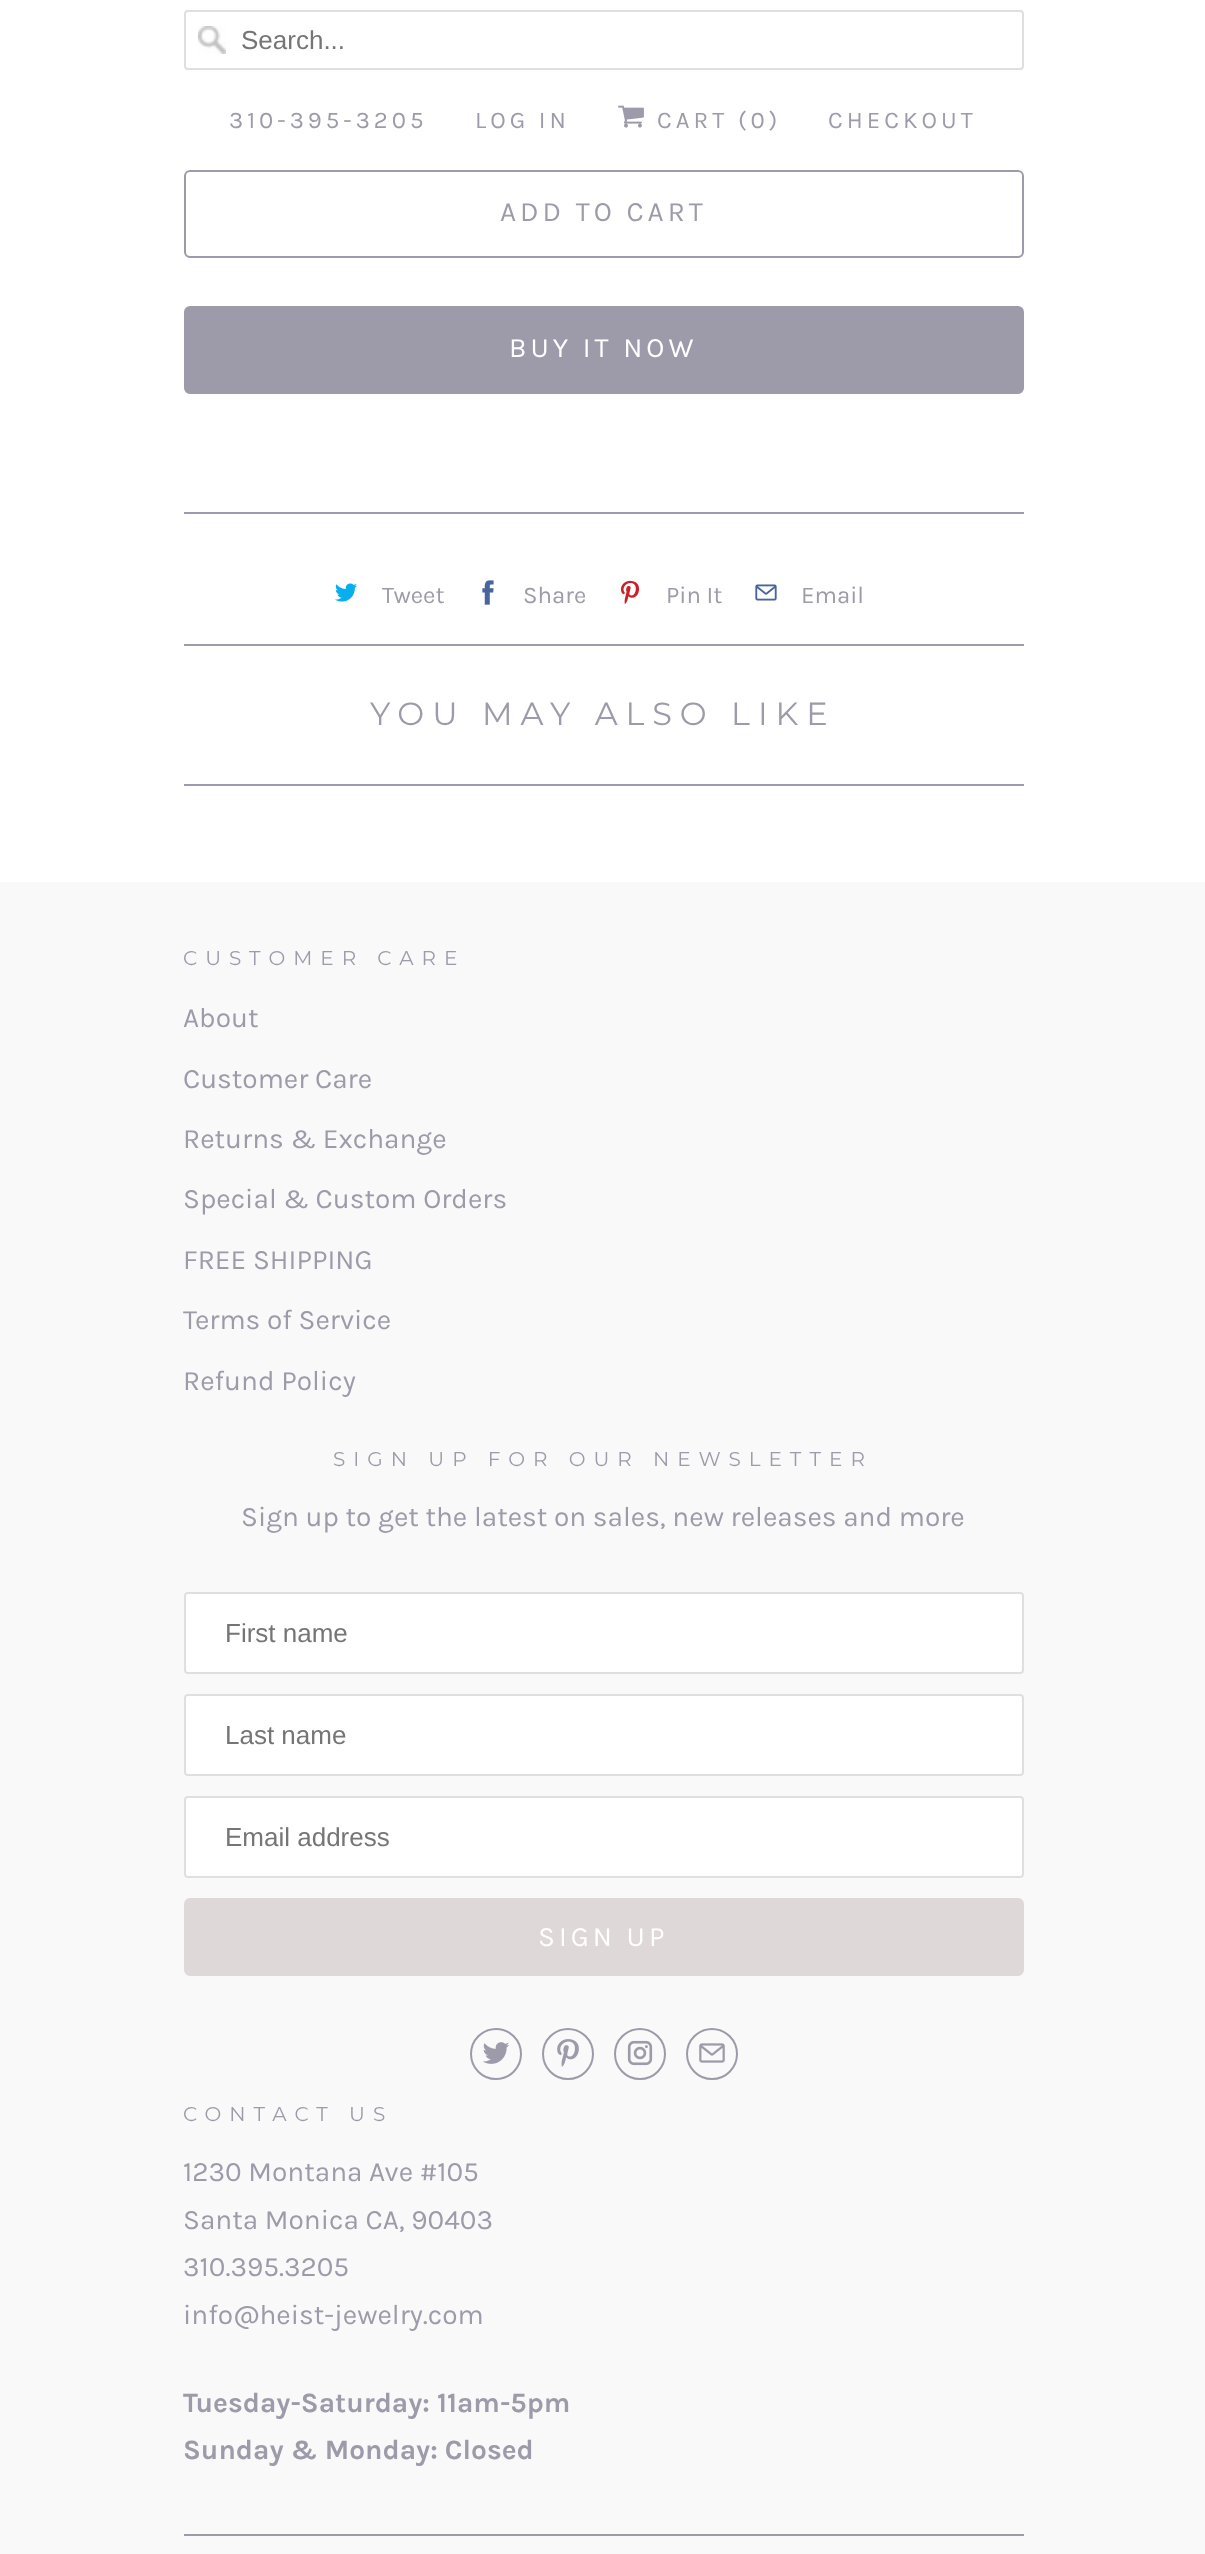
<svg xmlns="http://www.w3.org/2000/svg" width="1205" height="2554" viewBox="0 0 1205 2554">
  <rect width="100%" height="100%" fill="rgb(255,255,255)"/>
  <image x="198" y="26" width="28" height="28" href="pic1.png"/>
  <rect x="185" y="11" width="838" height="58" rx="3" fill="none" stroke="rgb(223,223,223)" stroke-width="2"/>
  <text x="241" y="49" font-family="Liberation Sans" font-size="26" fill="rgb(117,117,117)">Search...</text>
  <g font-family="Karla" font-size="24" letter-spacing="4" fill="rgb(157,155,169)">
    <text x="229" y="128">310-395-3205</text>
    <text x="475" y="128">LOG IN</text>
  </g>
  <image x="618" y="105" width="26" height="23" href="pic2.png"/>
  <g font-family="Karla" font-size="24" letter-spacing="4" fill="rgb(157,155,169)">
    <text x="657" y="128">CART (0)</text>
    <text x="828" y="128">CHECKOUT</text>
  </g>
  <rect x="185" y="171" width="838" height="86" rx="5" fill="none" stroke="rgb(157,155,169)" stroke-width="2"/>
  <text x="500" y="221" font-family="Karla" font-size="28" letter-spacing="4" fill="rgb(157,155,169)">ADD TO CART</text>
  <rect x="185" y="307" width="838" height="86" rx="5" fill="rgb(157,155,169)" stroke="rgb(157,155,169)" stroke-width="2"/>
  <text x="509" y="357" font-family="Karla" font-size="28" letter-spacing="4" fill="rgb(255,255,255)">BUY IT NOW</text>
  <rect x="184" y="512" width="840" height="2" fill="rgb(157,155,169)"/>
  <image x="335" y="583" width="22" height="19" href="pic3.png"/>
  <text x="382" y="603" font-family="Karla" font-size="24" fill="rgb(157,155,169)">Tweet</text>
  <image x="482" y="580" width="12" height="25" href="pic4.png"/>
  <text x="523" y="603" font-family="Karla" font-size="24" fill="rgb(157,155,169)">Share</text>
  <image x="621" y="580" width="19" height="24" href="pic5.png"/>
  <text x="666" y="603" font-family="Karla" font-size="24" fill="rgb(157,155,169)">Pin It</text>
  <image x="755" y="584" width="22" height="17" href="pic6.png"/>
  <text x="801" y="603" font-family="Karla" font-size="24" fill="rgb(157,155,169)">Email</text>
  <rect x="184" y="644" width="840" height="2" fill="rgb(157,155,169)"/>
  <rect x="184" y="784" width="840" height="2" fill="rgb(157,155,169)"/>
  <text x="370" y="725" font-family="Montserrat" font-size="32" letter-spacing="8" fill="rgb(157,155,169)">YOU MAY ALSO LIKE</text>
  <rect x="0" y="882" width="1205" height="1672" fill="rgb(249,249,249)"/>
  <text x="183" y="965" font-family="Montserrat" font-size="20" letter-spacing="8" fill="rgb(157,155,169)">CUSTOMER CARE</text>
  <g font-family="Karla" font-size="28" fill="rgb(157,155,169)">
    <text x="183" y="1027">About</text>
    <text x="183" y="1088">Customer Care</text>
    <text x="183" y="1148">Returns &amp; Exchange</text>
    <text x="183" y="1208">Special &amp; Custom Orders</text>
    <text x="183" y="1269">FREE SHIPPING</text>
    <text x="183" y="1329">Terms of Service</text>
    <text x="183" y="1390">Refund Policy</text>
  </g>
  <text x="333" y="1466" font-family="Montserrat" font-size="20" letter-spacing="8" fill="rgb(157,155,169)">SIGN UP FOR OUR NEWSLETTER</text>
  <text x="241" y="1526" font-family="Karla" font-size="28" fill="rgb(157,155,169)">Sign up to get the latest on sales, new releases and more</text>
  <rect x="185" y="1593" width="838" height="80" rx="3" fill="rgb(255,255,255)" stroke="rgb(223,223,223)" stroke-width="2"/>
  <text x="225" y="1642" font-family="Liberation Sans" font-size="26" fill="rgb(117,117,117)">First name</text>
  <rect x="185" y="1695" width="838" height="80" rx="3" fill="rgb(255,255,255)" stroke="rgb(223,223,223)" stroke-width="2"/>
  <text x="225" y="1744" font-family="Liberation Sans" font-size="26" fill="rgb(117,117,117)">Last name</text>
  <rect x="185" y="1797" width="838" height="80" rx="3" fill="rgb(255,255,255)" stroke="rgb(223,223,223)" stroke-width="2"/>
  <text x="225" y="1846" font-family="Liberation Sans" font-size="26" fill="rgb(117,117,117)">Email address</text>
  <rect x="185" y="1899" width="838" height="76" rx="5" fill="rgb(222,216,217)" stroke="rgb(222,216,217)" stroke-width="2"/>
  <text x="538" y="1946" font-family="Karla" font-size="28" letter-spacing="4" fill="rgb(255,255,255)">SIGN UP</text>
  <circle cx="496" cy="2054" r="25" fill="none" stroke="rgb(157,155,169)" stroke-width="2"/>
  <image x="483" y="2042" width="26" height="22" href="pic7.png"/>
  <circle cx="568" cy="2054" r="25" fill="none" stroke="rgb(157,155,169)" stroke-width="2"/>
  <image x="557" y="2039" width="22" height="28" href="pic8.png"/>
  <circle cx="640" cy="2054" r="25" fill="none" stroke="rgb(157,155,169)" stroke-width="2"/>
  <image x="627" y="2040" width="26" height="26" href="pic9.png"/>
  <circle cx="712" cy="2054" r="25" fill="none" stroke="rgb(157,155,169)" stroke-width="2"/>
  <image x="699" y="2043" width="26" height="20" href="pic10.png"/>
  <text x="183" y="2121" font-family="Montserrat" font-size="20" letter-spacing="8" fill="rgb(157,155,169)">CONTACT US</text>
  <g font-family="Karla" font-size="28" fill="rgb(157,155,169)">
    <text>
      <tspan x="183" y="2181">1230 Montana Ave #105</tspan>
      <tspan x="183" y="2229">Santa Monica CA, 90403</tspan>
      <tspan x="183" y="2276">310.395.3205</tspan>
      <tspan x="183" y="2324">info@heist-jewelry.com</tspan>
    </text>
  </g>
  <g font-family="Karla" font-size="28" font-weight="bold" fill="rgb(157,155,169)">
    <text>
      <tspan x="183" y="2412">Tuesday-Saturday: 11am-5pm</tspan>
      <tspan x="183" y="2459">Sunday &amp; Monday: Closed</tspan>
    </text>
  </g>
  <rect x="184" y="2534" width="840" height="2" fill="rgb(157,155,169)"/>
</svg>
